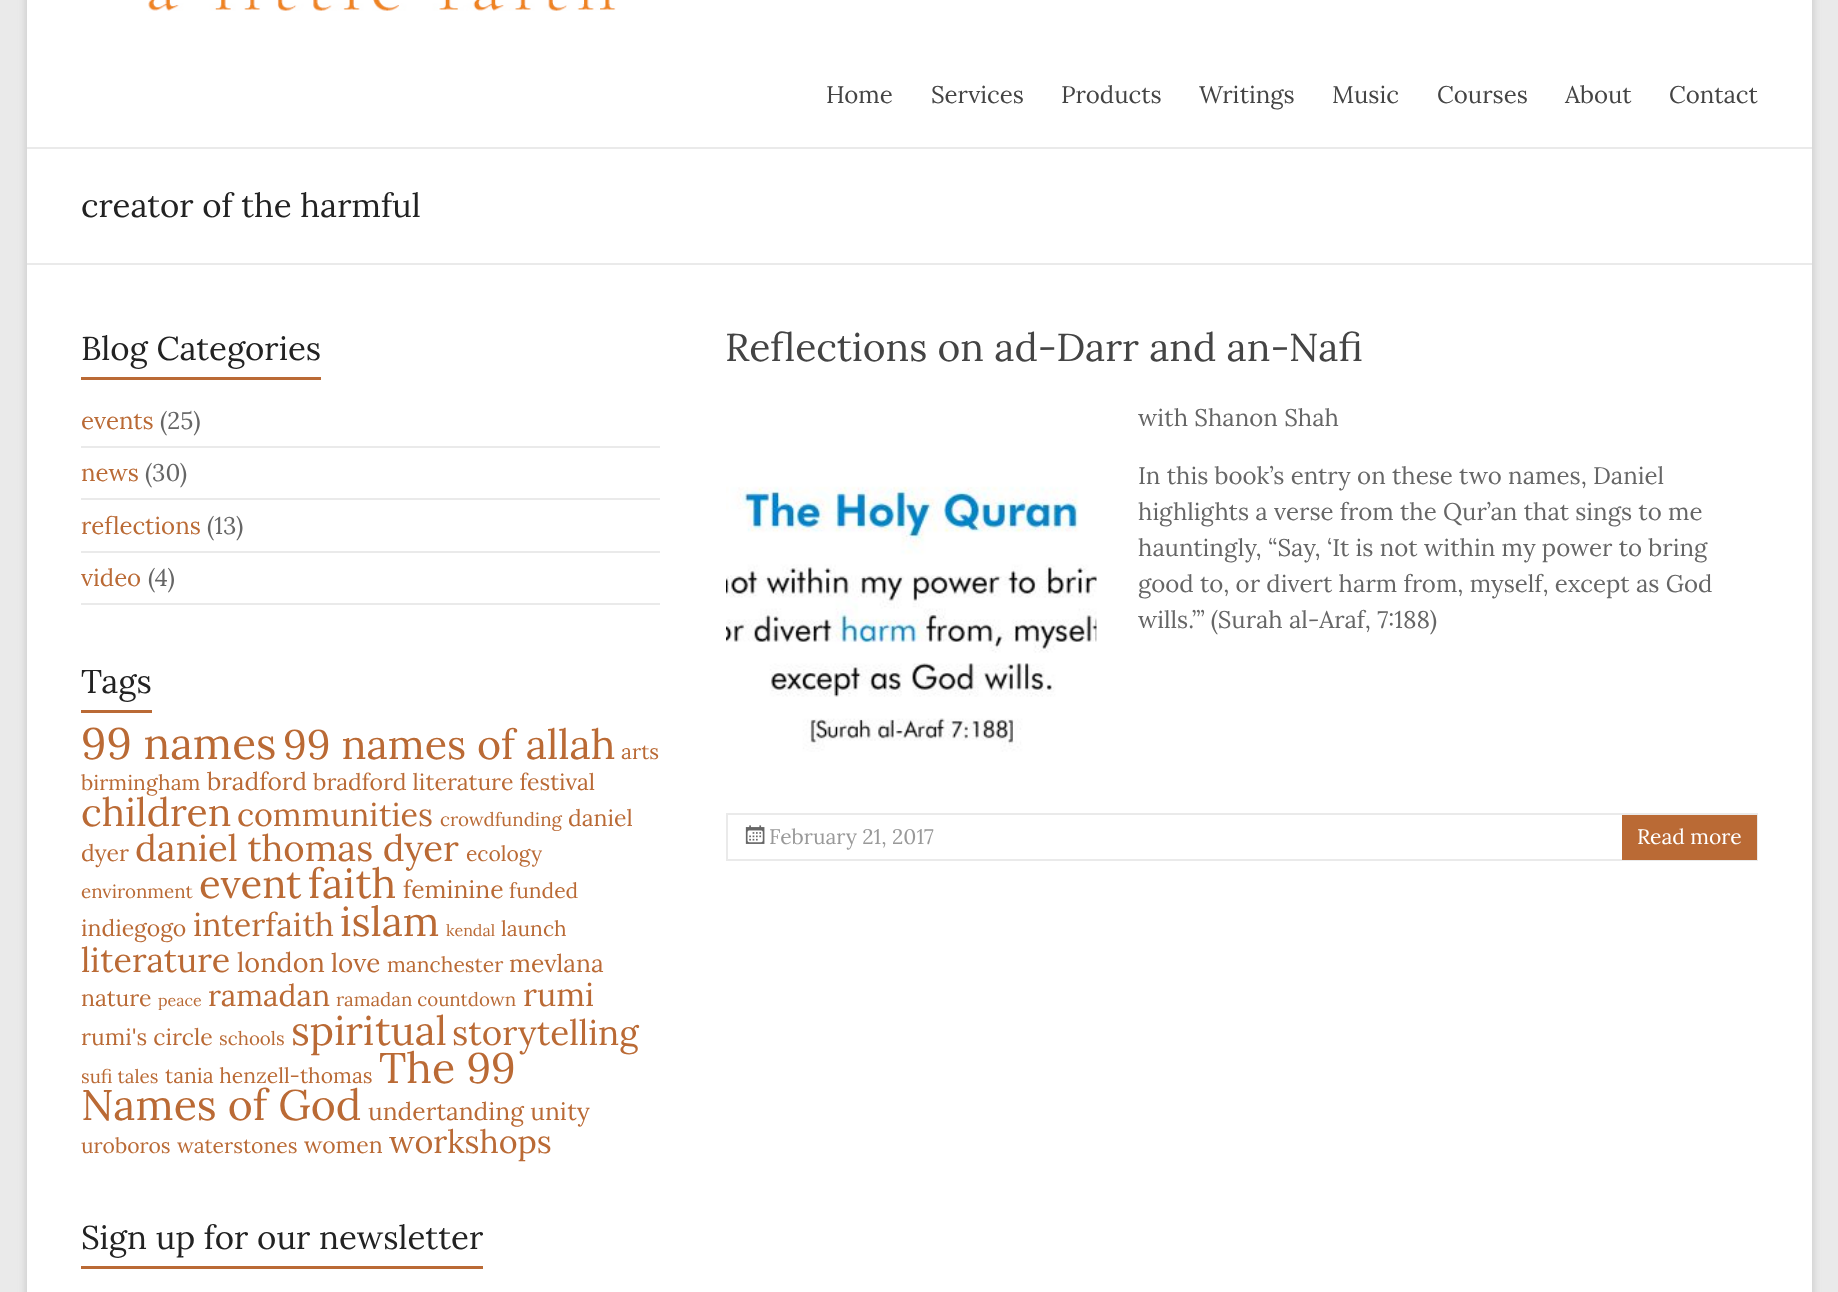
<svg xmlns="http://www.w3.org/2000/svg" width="1838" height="1292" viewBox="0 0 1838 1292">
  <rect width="100%" height="100%" fill="rgb(234,234,234)"/>
  <rect x="27" y="-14" width="1785" height="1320" fill="rgba(100,100,100,0.3)" filter="blur(4.5px)"/>
  <rect x="27" y="0" width="1785" height="1292" fill="rgb(255,255,255)"/>
  <rect x="27" y="147" width="1785" height="2" fill="rgb(234,234,234)"/>
  <image x="148" y="0" width="468" height="11" href="pic1.png"/>
  <g font-family="Lora" font-size="24" fill="rgb(68,68,68)">
    <text x="826" y="103">Home</text>
    <text x="931" y="103">Services</text>
    <text x="1061" y="103">Products</text>
    <text x="1199" y="103">Writings</text>
    <text x="1332" y="103">Music</text>
    <text x="1437" y="103">Courses</text>
    <text x="1565" y="103">About</text>
    <text x="1669" y="103">Contact</text>
  </g>
  <rect x="27" y="263" width="1785" height="2" fill="rgb(234,234,234)"/>
  <g font-family="Lora" font-size="33" fill="rgb(34,34,34)">
    <text x="81" y="217">creator of the harmful</text>
    <text x="81" y="360">Blog Categories</text>
  </g>
  <rect x="81" y="377" width="240" height="3" fill="rgb(186,106,53)"/>
  <rect x="81" y="446" width="579" height="2" fill="rgb(234,234,234)"/>
  <text x="81" y="429" font-family="Lora" font-size="24" fill="rgb(186,106,53)">events</text>
  <text x="160" y="429" font-family="Lora" font-size="24" fill="rgb(102,102,102)">(25)</text>
  <rect x="81" y="498" width="579" height="2" fill="rgb(234,234,234)"/>
  <text x="81" y="481" font-family="Lora" font-size="24" fill="rgb(186,106,53)">news</text>
  <text x="145" y="481" font-family="Lora" font-size="24" fill="rgb(102,102,102)">(30)</text>
  <rect x="81" y="551" width="579" height="2" fill="rgb(234,234,234)"/>
  <text x="81" y="534" font-family="Lora" font-size="24" fill="rgb(186,106,53)">reflections</text>
  <text x="207" y="534" font-family="Lora" font-size="24" fill="rgb(102,102,102)">(13)</text>
  <rect x="81" y="603" width="579" height="2" fill="rgb(234,234,234)"/>
  <text x="81" y="586" font-family="Lora" font-size="24" fill="rgb(186,106,53)">video</text>
  <text x="148" y="586" font-family="Lora" font-size="24" fill="rgb(102,102,102)">(4)</text>
  <text x="81" y="693" font-family="Lora" font-size="33" fill="rgb(34,34,34)">Tags</text>
  <rect x="81" y="710" width="71" height="3" fill="rgb(186,106,53)"/>
  <text x="81" y="759" font-family="Lora" font-size="44" fill="rgb(186,106,53)">99 names</text>
  <text x="283" y="759" font-family="Lora" font-size="41.25" fill="rgb(186,106,53)">99 names of allah</text>
  <g font-family="Lora" font-size="21.1" fill="rgb(186,106,53)">
    <text x="621" y="759">arts</text>
    <text x="81" y="790">birmingham</text>
  </g>
  <text x="207" y="790" font-family="Lora" font-size="24.6" fill="rgb(186,106,53)">bradford</text>
  <text x="313" y="790" font-family="Lora" font-size="23" fill="rgb(186,106,53)">bradford literature festival</text>
  <text x="81" y="826" font-family="Lora" font-size="39" fill="rgb(186,106,53)">children</text>
  <text x="237" y="826" font-family="Lora" font-size="32.25" fill="rgb(186,106,53)">communities</text>
  <text x="440" y="826" font-family="Lora" font-size="18.75" fill="rgb(186,106,53)">crowdfunding</text>
  <g font-family="Lora" font-size="23" fill="rgb(186,106,53)">
    <text x="568" y="826">daniel</text>
    <text x="81" y="861">dyer</text>
  </g>
  <text x="135" y="861" font-family="Lora" font-size="36.5" fill="rgb(186,106,53)">daniel thomas dyer</text>
  <text x="466" y="861" font-family="Lora" font-size="21.1" fill="rgb(186,106,53)">ecology</text>
  <text x="81" y="898" font-family="Lora" font-size="18.75" fill="rgb(186,106,53)">environment</text>
  <text x="199" y="898" font-family="Lora" font-size="40" fill="rgb(186,106,53)">event</text>
  <text x="308" y="898" font-family="Lora" font-size="41.25" fill="rgb(186,106,53)">faith</text>
  <text x="403" y="898" font-family="Lora" font-size="24.6" fill="rgb(186,106,53)">feminine</text>
  <text x="509" y="898" font-family="Lora" font-size="21.1" fill="rgb(186,106,53)">funded</text>
  <text x="81" y="936" font-family="Lora" font-size="23" fill="rgb(186,106,53)">indiegogo</text>
  <text x="193" y="936" font-family="Lora" font-size="32.25" fill="rgb(186,106,53)">interfaith</text>
  <text x="340" y="936" font-family="Lora" font-size="41" fill="rgb(186,106,53)">islam</text>
  <text x="446" y="936" font-family="Lora" font-size="16" fill="rgb(186,106,53)">kendal</text>
  <text x="501" y="936" font-family="Lora" font-size="21.1" fill="rgb(186,106,53)">launch</text>
  <text x="81" y="972" font-family="Lora" font-size="34" fill="rgb(186,106,53)">literature</text>
  <text x="237" y="972" font-family="Lora" font-size="27" fill="rgb(186,106,53)">london</text>
  <text x="331" y="972" font-family="Lora" font-size="26" fill="rgb(186,106,53)">love</text>
  <text x="387" y="972" font-family="Lora" font-size="21.1" fill="rgb(186,106,53)">manchester</text>
  <text x="509" y="972" font-family="Lora" font-size="24.6" fill="rgb(186,106,53)">mevlana</text>
  <text x="81" y="1006" font-family="Lora" font-size="23" fill="rgb(186,106,53)">nature</text>
  <text x="158" y="1006" font-family="Lora" font-size="16" fill="rgb(186,106,53)">peace</text>
  <text x="208" y="1006" font-family="Lora" font-size="30" fill="rgb(186,106,53)">ramadan</text>
  <text x="336" y="1006" font-family="Lora" font-size="18.75" fill="rgb(186,106,53)">ramadan countdown</text>
  <text x="523" y="1006" font-family="Lora" font-size="32.25" fill="rgb(186,106,53)">rumi</text>
  <text x="81" y="1045" font-family="Lora" font-size="23" fill="rgb(186,106,53)">rumi's circle</text>
  <text x="219" y="1045" font-family="Lora" font-size="18.75" fill="rgb(186,106,53)">schools</text>
  <text x="291" y="1045" font-family="Lora" font-size="40.5" fill="rgb(186,106,53)">spiritual</text>
  <text x="452" y="1045" font-family="Lora" font-size="35" fill="rgb(186,106,53)">storytelling</text>
  <text x="81" y="1083" font-family="Lora" font-size="18.75" fill="rgb(186,106,53)">sufi tales</text>
  <text x="165" y="1083" font-family="Lora" font-size="21.1" fill="rgb(186,106,53)">tania henzell-thomas</text>
  <g font-family="Lora" font-size="42.75" fill="rgb(186,106,53)">
    <text x="379" y="1083">The 99</text>
    <text x="81" y="1120">Names of God</text>
  </g>
  <text x="368" y="1120" font-family="Lora" font-size="24.6" fill="rgb(186,106,53)">undertanding unity</text>
  <g font-family="Lora" font-size="21.1" fill="rgb(186,106,53)">
    <text x="81" y="1153">uroboros</text>
    <text x="177" y="1153">waterstones</text>
  </g>
  <text x="304" y="1153" font-family="Lora" font-size="23" fill="rgb(186,106,53)">women</text>
  <text x="389" y="1153" font-family="Lora" font-size="32.25" fill="rgb(186,106,53)">workshops</text>
  <text x="81" y="1249" font-family="Lora" font-size="33" fill="rgb(34,34,34)">Sign up for our newsletter</text>
  <rect x="81" y="1266" width="402" height="3" fill="rgb(186,106,53)"/>
  <text x="725" y="361" font-family="Lora" font-size="39" fill="rgb(68,68,68)">Reflections on ad-Darr and an-Nafi</text>
  <image x="726" y="486" width="371" height="266" href="pic2.png"/>
  <g font-family="Lora" font-size="24" fill="rgb(102,102,102)">
    <text x="1138" y="426">with Shanon Shah</text>
    <text>
      <tspan x="1138" y="484">In this book’s entry on these two names, Daniel</tspan>
      <tspan x="1138" y="520">highlights a verse from the Qur’an that sings to me</tspan>
      <tspan x="1138" y="556">hauntingly, “Say, ‘It is not within my power to bring</tspan>
      <tspan x="1138" y="592">good to, or divert harm from, myself, except as God</tspan>
      <tspan x="1138" y="628">wills.’” (Surah al-Araf, 7:188)</tspan>
    </text>
  </g>
  <rect x="727" y="814" width="1030" height="46" fill="none" stroke="rgb(234,234,234)" stroke-width="2"/>
  <image x="745" y="825" width="20" height="19" href="pic3.png"/>
  <text x="769" y="844" font-family="Lora" font-size="21" fill="rgb(153,153,153)">February 21, 2017</text>
  <rect x="1622" y="815" width="135" height="45" fill="rgb(186,106,53)"/>
  <text x="1637" y="844" font-family="Lora" font-size="21" fill="rgb(255,255,255)">Read more</text>
</svg>
